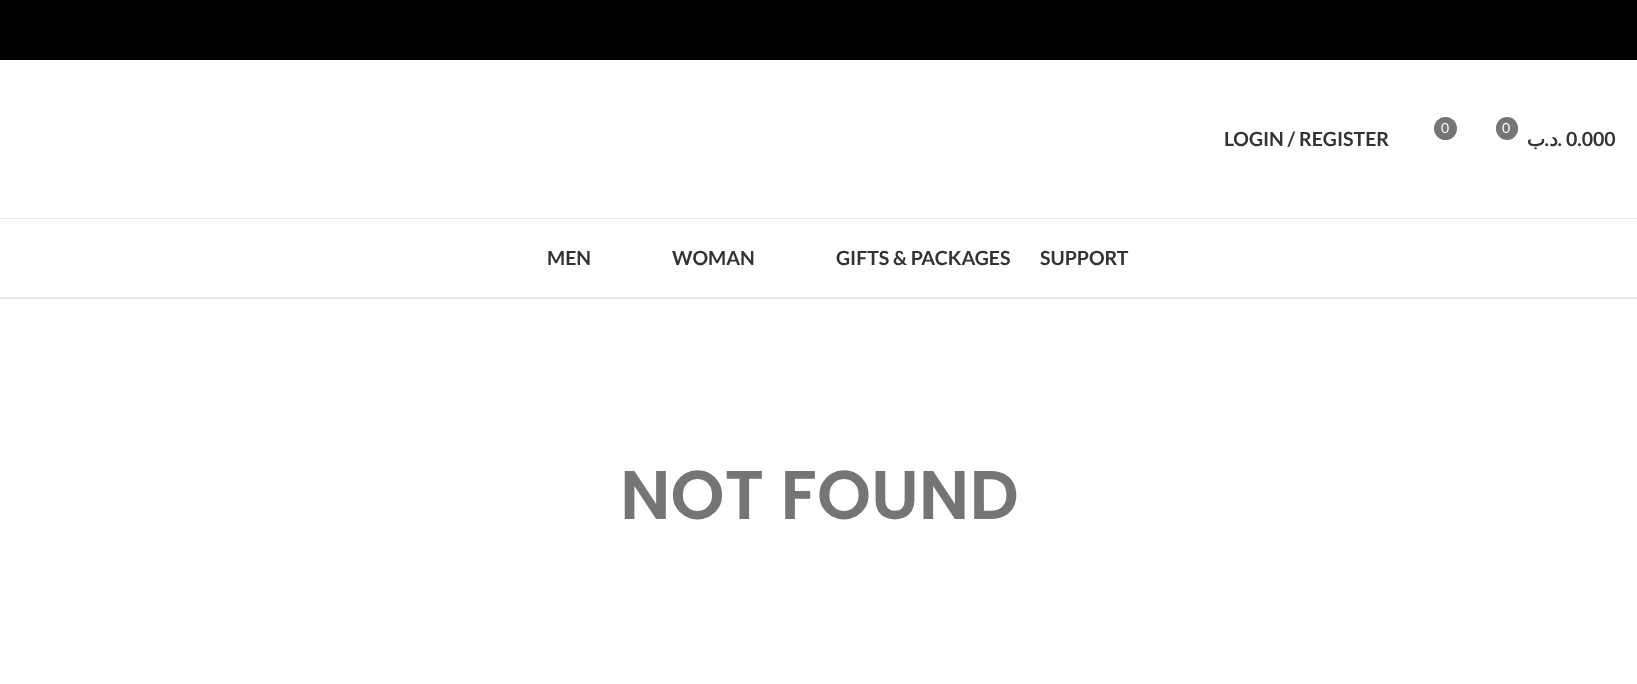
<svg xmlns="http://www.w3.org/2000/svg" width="1637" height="684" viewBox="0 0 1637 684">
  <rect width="100%" height="100%" fill="rgb(255,255,255)"/>
  <rect x="0" y="0" width="1637" height="60" fill="rgb(0,0,0)"/>
  <rect x="0" y="218" width="1637" height="1" fill="rgb(232,232,232)"/>
  <text x="1224" y="146" font-family="Lato" font-size="19.5" font-weight="bold" fill="rgb(51,51,51)">LOGIN / REGISTER</text>
  <circle cx="1445.5" cy="128.5" r="11.5" fill="rgb(117,117,117)"/>
  <text x="1441" y="133" font-family="Lato" font-size="14" fill="rgb(255,255,255)">0</text>
  <rect x="1496" y="117" width="22" height="23" rx="11" fill="rgb(117,117,117)"/>
  <text x="1502" y="133" font-family="Lato" font-size="14" fill="rgb(255,255,255)">0</text>
  <text x="1545" y="146" font-family="DejaVu Sans" font-size="19.5" font-weight="bold" direction="rtl" fill="rgb(51,51,51)">ب</text>
  <text x="1549" y="146" font-family="Lato" font-size="19.5" font-weight="bold" direction="rtl" fill="rgb(51,51,51)">.</text>
  <text x="1558" y="146" font-family="DejaVu Sans" font-size="19.5" font-weight="bold" direction="rtl" fill="rgb(51,51,51)">د</text>
  <text x="1562" y="146" font-family="Lato" font-size="19.5" font-weight="bold" direction="rtl" fill="rgb(51,51,51)">.</text>
  <text x="1566" y="146" font-family="Lato" font-size="19.5" font-weight="bold" fill="rgb(51,51,51)">0.000</text>
  <rect x="0" y="297" width="1637" height="2" fill="rgb(232,232,232)"/>
  <g font-family="Lato" font-size="19.5" font-weight="bold" fill="rgb(51,51,51)">
    <text x="547" y="265">MEN</text>
    <text x="672" y="265">WOMAN</text>
    <text x="836" y="265">GIFTS &amp; PACKAGES</text>
    <text x="1040" y="265">SUPPORT</text>
  </g>
  <text x="620" y="519" font-family="Poppins" font-size="68.75" font-weight="600" fill="rgb(117,117,117)">NOT FOUND</text>
</svg>
